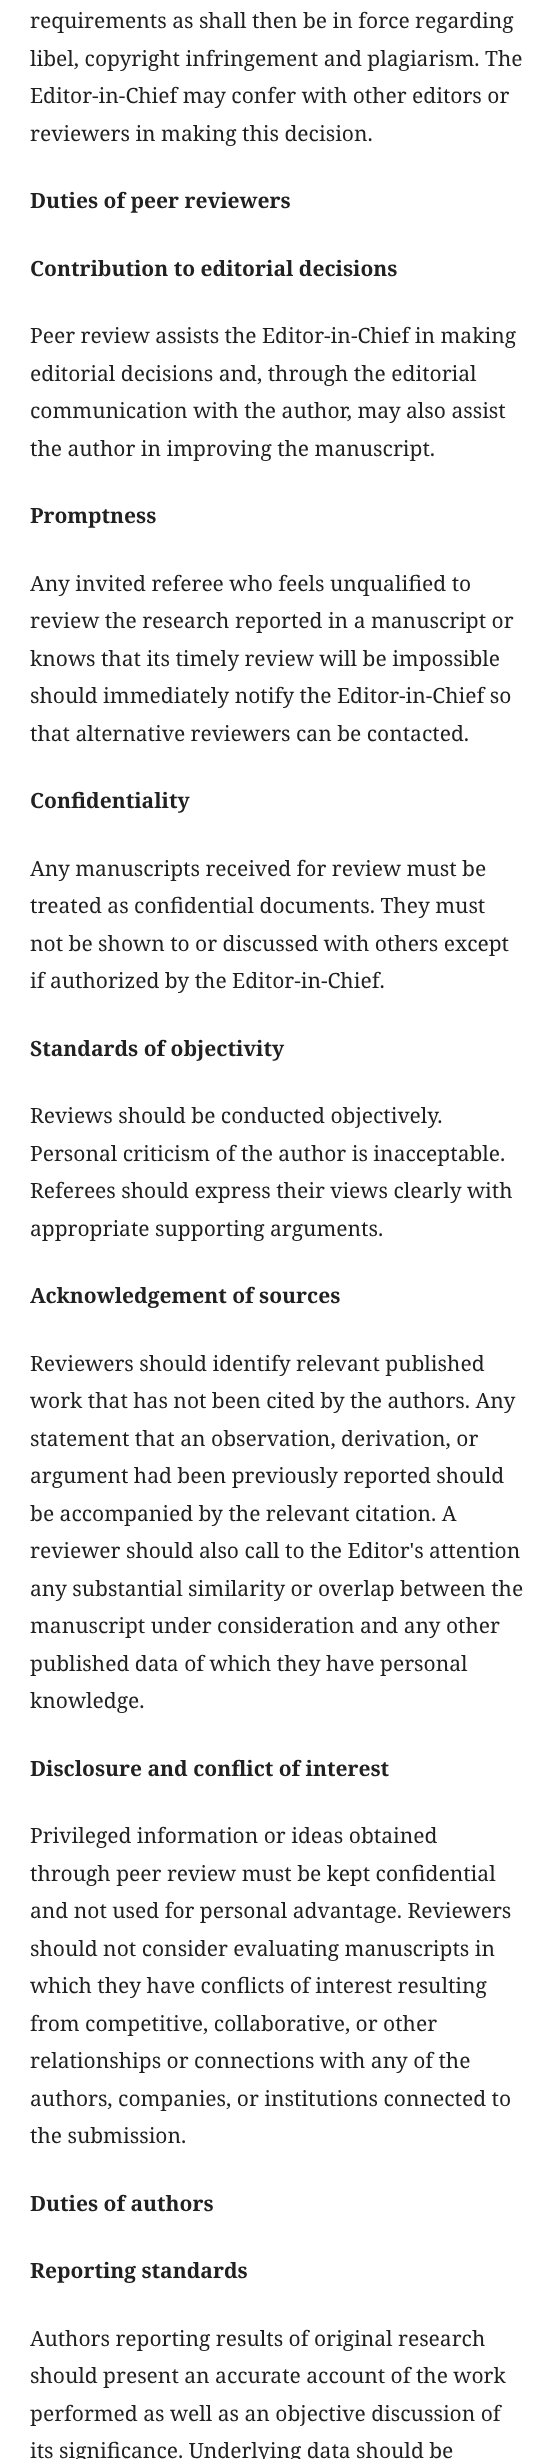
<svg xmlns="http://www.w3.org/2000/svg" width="553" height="2459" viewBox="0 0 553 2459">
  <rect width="100%" height="100%" fill="rgb(255,255,255)"/>
  <g font-family="Noto Serif" font-size="21" fill="rgb(33,33,33)">
    <text>
      <tspan x="30" y="28">requirements as shall then be in force regarding</tspan>
      <tspan x="30" y="66">libel, copyright infringement and plagiarism. The</tspan>
      <tspan x="30" y="103">Editor-in-Chief may confer with other editors or</tspan>
      <tspan x="30" y="141">reviewers in making this decision.</tspan>
    </text>
  </g>
  <g font-family="Noto Serif" font-size="21" font-weight="bold" fill="rgb(33,33,33)">
    <text x="30" y="208">Duties of peer reviewers</text>
    <text x="30" y="276">Contribution to editorial decisions</text>
  </g>
  <g font-family="Noto Serif" font-size="21" fill="rgb(33,33,33)">
    <text>
      <tspan x="30" y="343">Peer review assists the Editor-in-Chief in making</tspan>
      <tspan x="30" y="381">editorial decisions and, through the editorial</tspan>
      <tspan x="30" y="418">communication with the author, may also assist</tspan>
      <tspan x="30" y="456">the author in improving the manuscript.</tspan>
    </text>
  </g>
  <text x="30" y="523" font-family="Noto Serif" font-size="21" font-weight="bold" fill="rgb(33,33,33)">Promptness</text>
  <g font-family="Noto Serif" font-size="21" fill="rgb(33,33,33)">
    <text>
      <tspan x="30" y="591">Any invited referee who feels unqualified to</tspan>
      <tspan x="30" y="628">review the research reported in a manuscript or</tspan>
      <tspan x="30" y="666">knows that its timely review will be impossible</tspan>
      <tspan x="30" y="703">should immediately notify the Editor-in-Chief so</tspan>
      <tspan x="30" y="741">that alternative reviewers can be contacted.</tspan>
    </text>
  </g>
  <text x="30" y="808" font-family="Noto Serif" font-size="21" font-weight="bold" fill="rgb(33,33,33)">Confidentiality</text>
  <g font-family="Noto Serif" font-size="21" fill="rgb(33,33,33)">
    <text>
      <tspan x="30" y="876">Any manuscripts received for review must be</tspan>
      <tspan x="30" y="913">treated as confidential documents. They must</tspan>
      <tspan x="30" y="951">not be shown to or discussed with others except</tspan>
      <tspan x="30" y="988">if authorized by the Editor-in-Chief.</tspan>
    </text>
  </g>
  <text x="30" y="1056" font-family="Noto Serif" font-size="21" font-weight="bold" fill="rgb(33,33,33)">Standards of objectivity</text>
  <g font-family="Noto Serif" font-size="21" fill="rgb(33,33,33)">
    <text>
      <tspan x="30" y="1123">Reviews should be conducted objectively.</tspan>
      <tspan x="30" y="1161">Personal criticism of the author is inacceptable.</tspan>
      <tspan x="30" y="1198">Referees should express their views clearly with</tspan>
      <tspan x="30" y="1236">appropriate supporting arguments.</tspan>
    </text>
  </g>
  <text x="30" y="1303" font-family="Noto Serif" font-size="21" font-weight="bold" fill="rgb(33,33,33)">Acknowledgement of sources</text>
  <g font-family="Noto Serif" font-size="21" fill="rgb(33,33,33)">
    <text>
      <tspan x="30" y="1371">Reviewers should identify relevant published</tspan>
      <tspan x="30" y="1408">work that has not been cited by the authors. Any</tspan>
      <tspan x="30" y="1446">statement that an observation, derivation, or</tspan>
      <tspan x="30" y="1483">argument had been previously reported should</tspan>
      <tspan x="30" y="1521">be accompanied by the relevant citation. A</tspan>
      <tspan x="30" y="1558">reviewer should also call to the Editor's attention</tspan>
      <tspan x="30" y="1596">any substantial similarity or overlap between the</tspan>
      <tspan x="30" y="1633">manuscript under consideration and any other</tspan>
      <tspan x="30" y="1671">published data of which they have personal</tspan>
      <tspan x="30" y="1708">knowledge.</tspan>
    </text>
  </g>
  <text x="30" y="1776" font-family="Noto Serif" font-size="21" font-weight="bold" fill="rgb(33,33,33)">Disclosure and conflict of interest</text>
  <g font-family="Noto Serif" font-size="21" fill="rgb(33,33,33)">
    <text>
      <tspan x="30" y="1843">Privileged information or ideas obtained</tspan>
      <tspan x="30" y="1881">through peer review must be kept confidential</tspan>
      <tspan x="30" y="1918">and not used for personal advantage. Reviewers</tspan>
      <tspan x="30" y="1956">should not consider evaluating manuscripts in</tspan>
      <tspan x="30" y="1993">which they have conflicts of interest resulting</tspan>
      <tspan x="30" y="2031">from competitive, collaborative, or other</tspan>
      <tspan x="30" y="2068">relationships or connections with any of the</tspan>
      <tspan x="30" y="2106">authors, companies, or institutions connected to</tspan>
      <tspan x="30" y="2143">the submission.</tspan>
    </text>
  </g>
  <g font-family="Noto Serif" font-size="21" font-weight="bold" fill="rgb(33,33,33)">
    <text x="30" y="2211">Duties of authors</text>
    <text x="30" y="2278">Reporting standards</text>
  </g>
  <g font-family="Noto Serif" font-size="21" fill="rgb(33,33,33)">
    <text>
      <tspan x="30" y="2346">Authors reporting results of original research</tspan>
      <tspan x="30" y="2383">should present an accurate account of the work</tspan>
      <tspan x="30" y="2421">performed as well as an objective discussion of</tspan>
      <tspan x="30" y="2458">its significance. Underlying data should be</tspan>
    </text>
  </g>
</svg>
